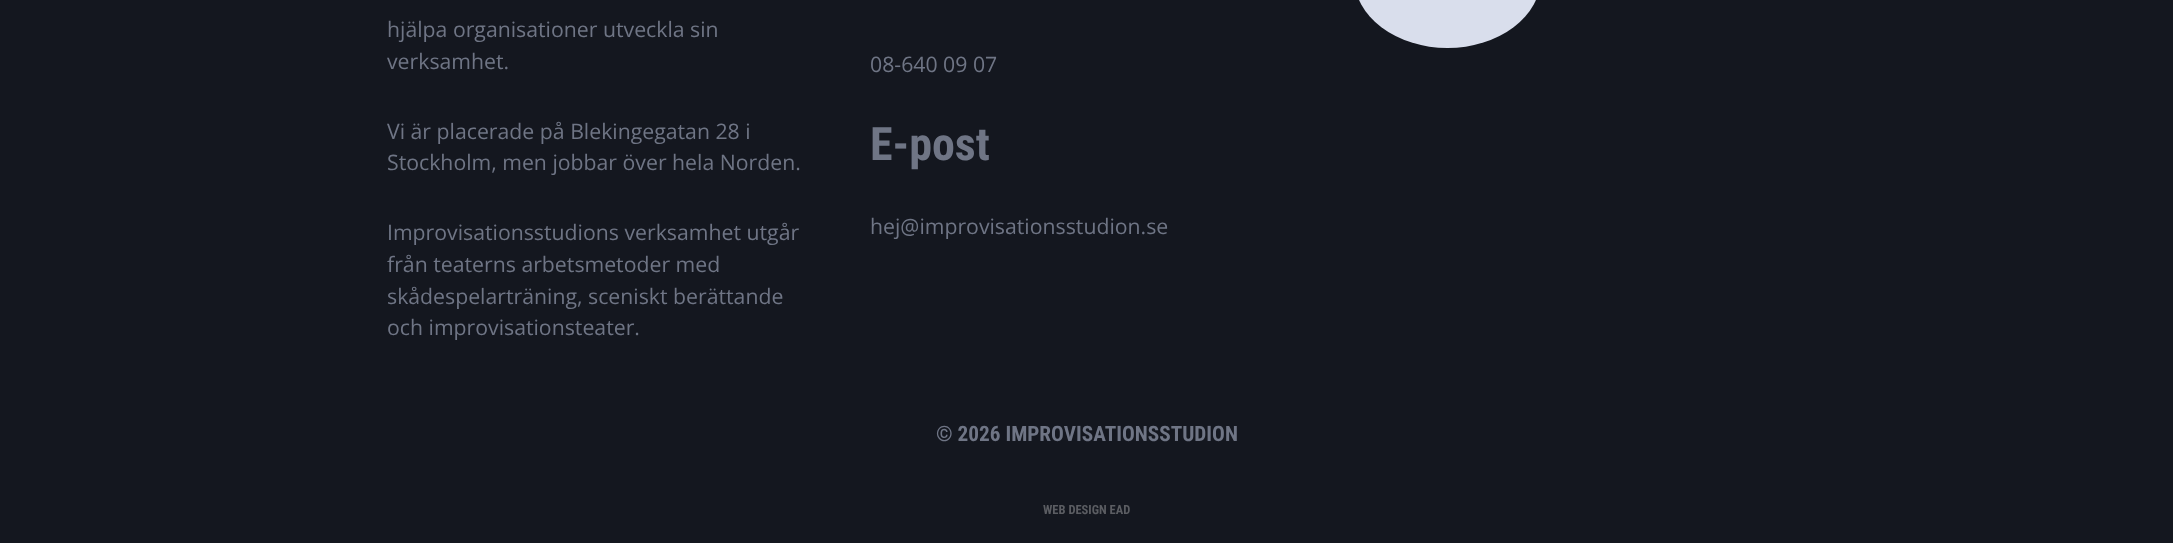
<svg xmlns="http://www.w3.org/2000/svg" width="2173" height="543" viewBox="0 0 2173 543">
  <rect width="100%" height="100%" fill="rgb(20,23,31)"/>
  <rect x="1354" y="-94" width="187" height="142" rx="93.5" fill="rgb(217,222,236)"/>
  <g font-family="Open Sans" font-size="21.25" fill="rgb(111,117,133)">
    <text>
      <tspan x="387" y="37">hjälpa organisationer utveckla sin</tspan>
      <tspan x="387" y="69">verksamhet.</tspan>
    </text>
    <text>
      <tspan x="387" y="139">Vi är placerade på Blekingegatan 28 i</tspan>
      <tspan x="387" y="170">Stockholm, men jobbar över hela Norden.</tspan>
    </text>
    <text>
      <tspan x="387" y="240">Improvisationsstudions verksamhet utgår</tspan>
      <tspan x="387" y="272">från teaterns arbetsmetoder med</tspan>
      <tspan x="387" y="304">skådespelarträning, sceniskt berättande</tspan>
      <tspan x="387" y="335">och improvisationsteater.</tspan>
    </text>
    <text x="870" y="72">08-640 09 07</text>
  </g>
  <text x="870" y="160" font-family="Roboto Condensed" font-size="46" font-weight="bold" fill="rgb(111,117,133)">E-post</text>
  <text x="870" y="234" font-family="Open Sans" font-size="21.25" fill="rgb(111,117,133)">hej@improvisationsstudion.se</text>
  <text x="936" y="441" font-family="Roboto Condensed" font-size="21.25" font-weight="bold" fill="rgb(111,117,133)">© 2026 IMPROVISATIONSSTUDION</text>
  <text x="1043" y="514" font-family="Roboto Condensed" font-size="12.5" font-weight="bold" fill="rgb(91,93,98)">WEB DESIGN EAD</text>
</svg>
